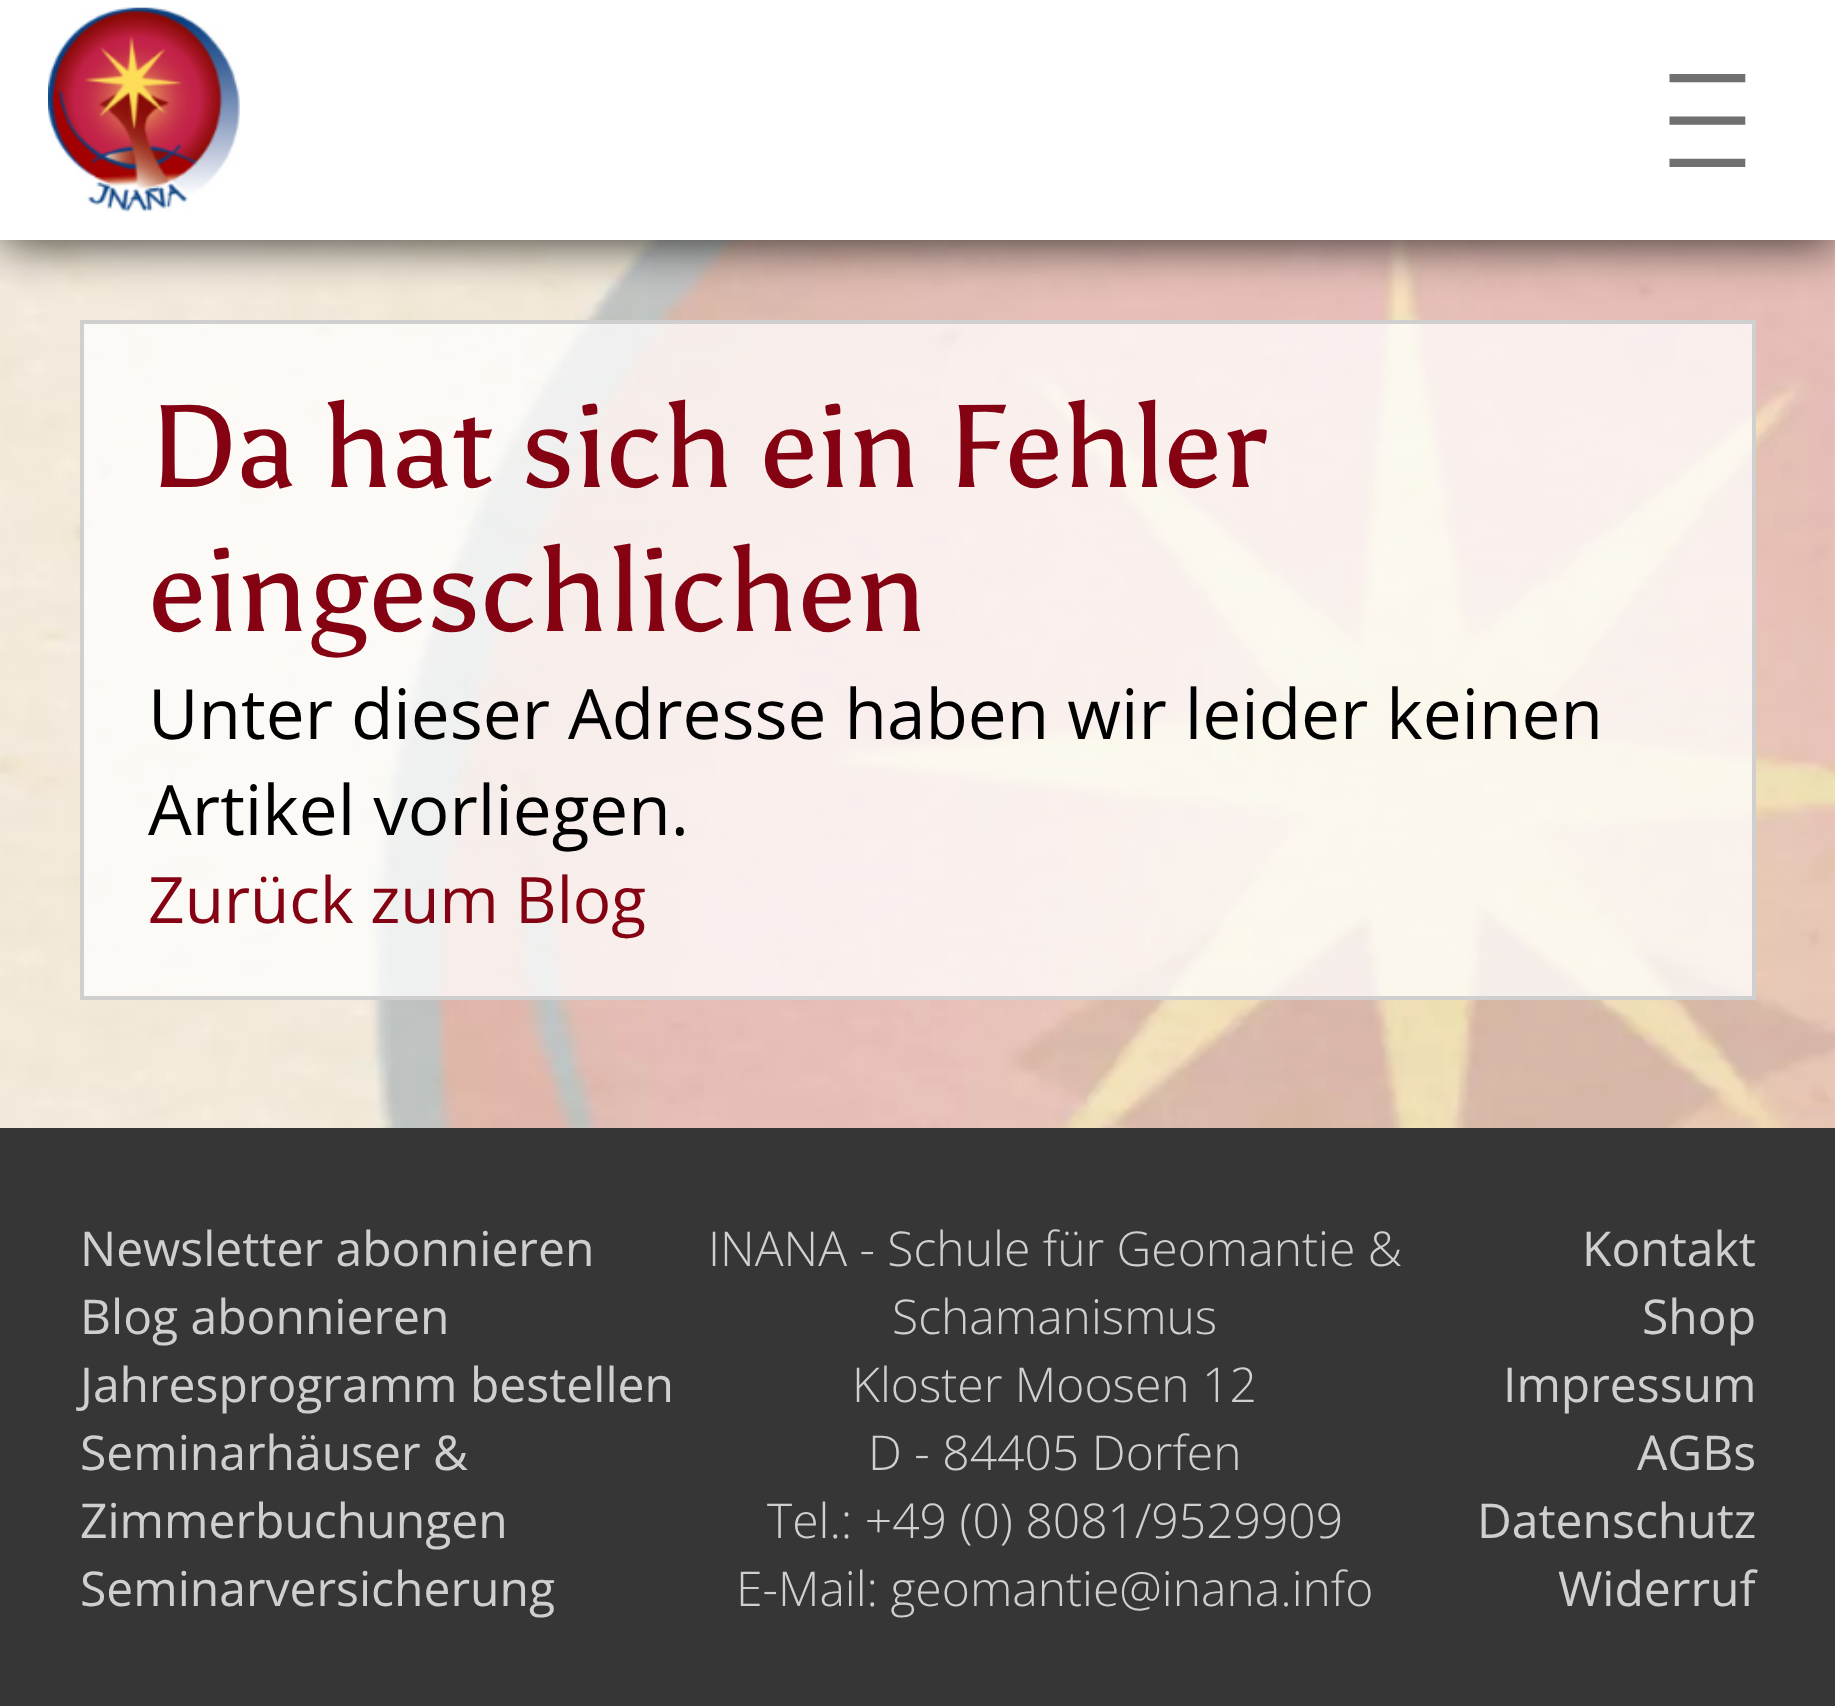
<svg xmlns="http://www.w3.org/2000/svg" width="1835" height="1706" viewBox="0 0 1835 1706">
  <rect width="100%" height="100%" fill="rgb(255,255,255)"/>
  <image x="0" y="240" width="1835" height="888" href="pic2.png"/>
  <rect x="0" y="4" width="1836" height="240" fill="rgba(0,0,0,0.75)" filter="blur(24px)"/>
  <rect x="0" y="0" width="1835" height="240" fill="rgb(255,255,255)"/>
  <image x="48" y="7" width="192" height="205" href="pic1.png"/>
  <text x="1687" y="57" transform="rotate(90 1687 57)" font-family="Open Sans" font-size="77" font-weight="bold" fill="rgb(112,112,112)">|||</text>
  <rect x="82" y="322" width="1672" height="676" fill="rgba(255,255,255,0.75)" stroke="rgb(207,207,207)" stroke-width="4"/>
  <g font-family="Asul" font-size="117.25" fill="rgb(132,2,18)">
    <text>
      <tspan x="148" y="487">Da hat sich ein Fehler</tspan>
      <tspan x="148" y="631">eingeschlichen</tspan>
    </text>
  </g>
  <g font-family="Open Sans" font-size="69.3" fill="rgb(0,0,0)">
    <text>
      <tspan x="148" y="739">Unter dieser Adresse haben wir leider keinen</tspan>
      <tspan x="148" y="835">Artikel vorliegen.</tspan>
    </text>
  </g>
  <text x="148" y="923" font-family="Open Sans" font-size="64" fill="rgb(132,2,18)">Zurück zum Blog</text>
  <rect x="0" y="1128" width="1835" height="578" fill="rgb(54,54,54)"/>
  <g font-family="Open Sans" font-size="48" fill="rgb(207,207,207)">
    <text>
      <tspan x="80" y="1266">Newsletter abonnieren</tspan>
      <tspan x="80" y="1334">Blog abonnieren</tspan>
      <tspan x="80" y="1402">Jahresprogramm bestellen</tspan>
      <tspan x="80" y="1470">Seminarhäuser &amp;</tspan>
      <tspan x="80" y="1538">Zimmerbuchungen</tspan>
      <tspan x="80" y="1606">Seminarversicherung</tspan>
    </text>
  </g>
  <g font-family="Open Sans" font-size="48" font-weight="300" fill="rgb(207,207,207)">
    <text x="708" y="1266">INANA - Schule für Geomantie &amp;</text>
    <text x="892" y="1334">Schamanismus</text>
    <text x="852" y="1402">Kloster Moosen 12</text>
    <text x="868" y="1470">D - 84405 Dorfen</text>
    <text x="767" y="1538">Tel.: +49 (0) 8081/9529909</text>
    <text x="736" y="1606">E-Mail: geomantie@inana.info</text>
  </g>
  <g font-family="Open Sans" font-size="48" fill="rgb(207,207,207)">
    <text x="1582" y="1266">Kontakt</text>
    <text x="1642" y="1334">Shop</text>
    <text x="1503" y="1402">Impressum</text>
    <text x="1637" y="1470">AGBs</text>
    <text x="1477" y="1538">Datenschutz</text>
    <text x="1558" y="1606">Widerruf</text>
  </g>
</svg>
